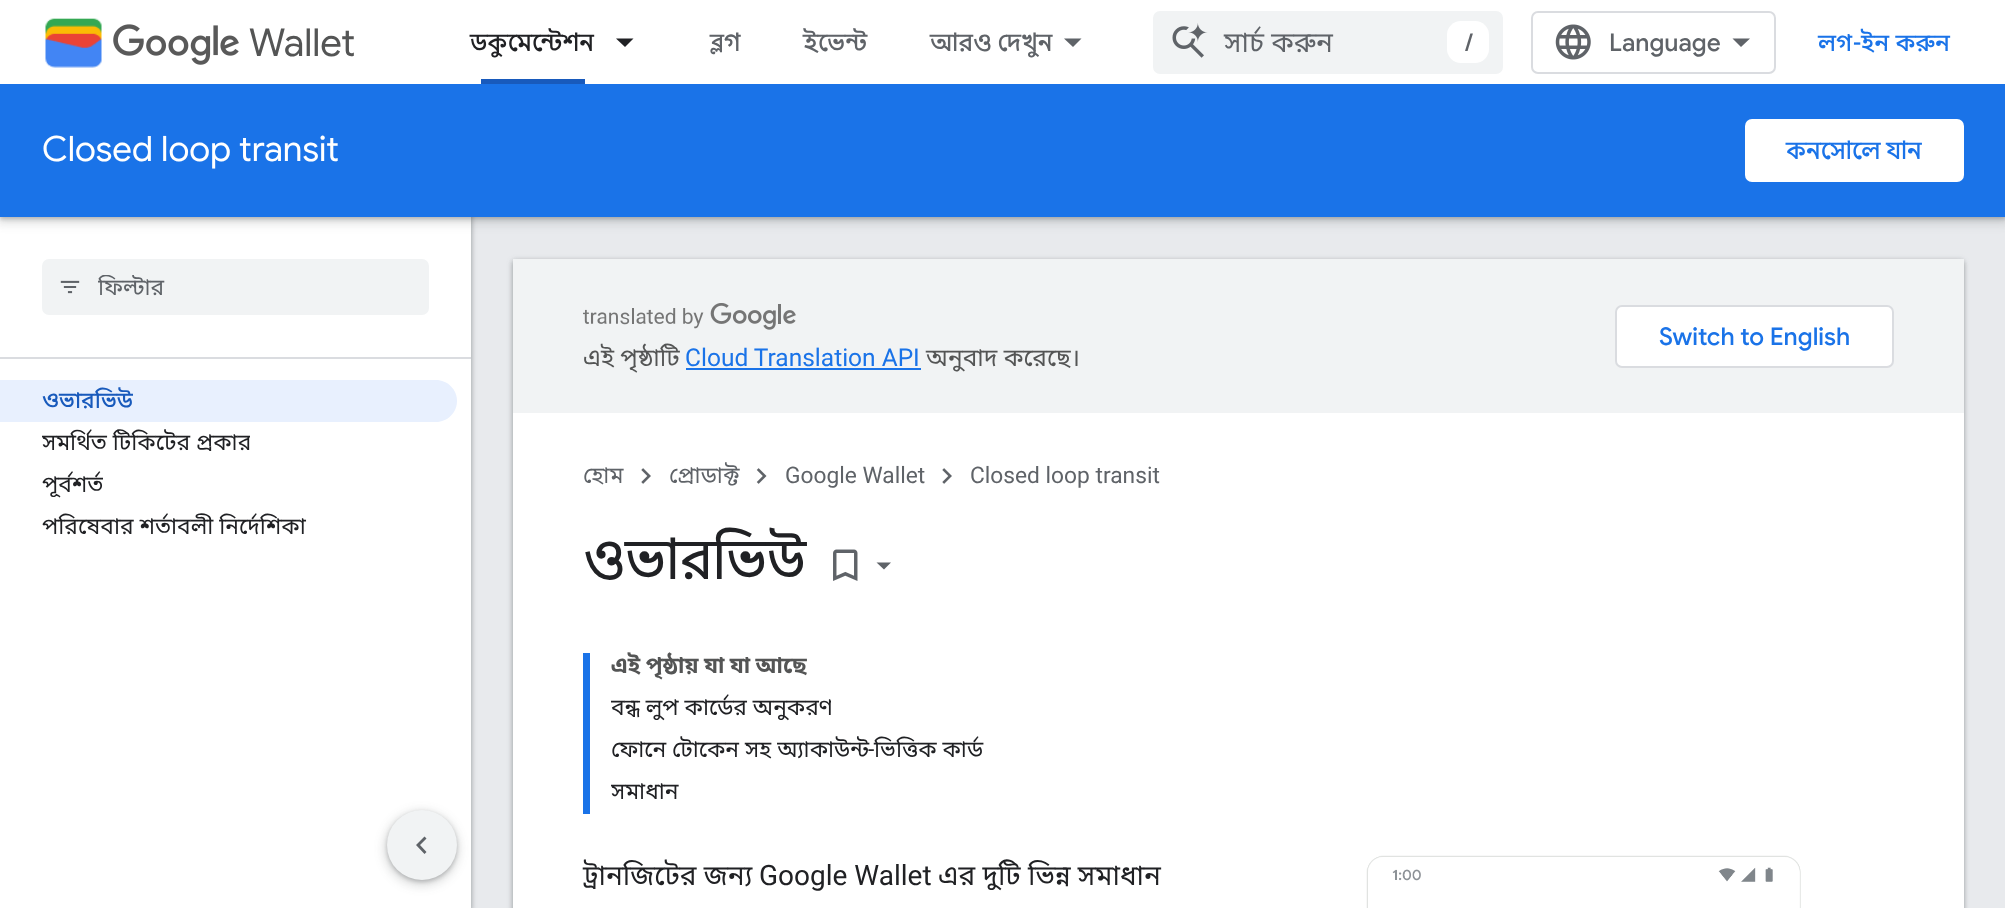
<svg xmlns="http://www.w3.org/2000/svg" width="2005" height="908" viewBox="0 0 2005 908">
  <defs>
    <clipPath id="clip1"><rect x="98" y="275" width="275" height="30"/></clipPath>
    <clipPath id="clip2"><rect x="42" y="217" width="91" height="443"/></clipPath>
    <clipPath id="clip3"><rect x="42" y="217" width="208" height="443"/></clipPath>
    <clipPath id="clip4"><rect x="42" y="217" width="61" height="443"/></clipPath>
    <clipPath id="clip5"><rect x="611" y="0" width="220" height="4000"/></clipPath>
    <clipPath id="clip6"><rect x="611" y="0" width="373" height="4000"/></clipPath>
    <clipPath id="clip7"><rect x="611" y="0" width="68" height="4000"/></clipPath>
  </defs>
  <rect width="100%" height="100%" fill="rgb(232,234,237)"/>
  <rect x="-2" y="0" width="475" height="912" fill="rgba(60,64,67,0.15)" filter="blur(2.5px)"/>
  <rect x="0" y="2" width="471" height="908" fill="rgba(60,64,67,0.3)" filter="blur(2px)"/>
  <rect x="0" y="217" width="471" height="691" fill="rgb(255,255,255)"/>
  <rect x="-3" y="84" width="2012" height="140" fill="rgba(60,64,67,0.15)" filter="blur(5px)"/>
  <rect x="0" y="86" width="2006" height="133" fill="rgba(60,64,67,0.3)" filter="blur(2px)"/>
  <rect x="0" y="0" width="2005" height="84" fill="rgb(255,255,255)"/>
  <image x="45" y="18" width="57" height="50" href="pic1.png"/>
  <image x="113" y="24" width="126" height="41" href="pic2.png"/>
  <text x="249" y="56" font-family="Google Sans" font-size="38.5" fill="rgb(84,85,85)">Wallet</text>
  <text x="470" y="51" font-family="Google Sans" font-size="24.5" font-weight="500" fill="rgb(32,33,36)">ডকুমেন্টেশন</text>
  <rect x="481" y="79" width="104" height="5" fill="rgb(24,90,188)"/>
  <path d="M616 38.5H633.5L625 47Z" fill="rgb(32,33,36)"/>
  <g font-family="Google Sans" font-size="24.5" font-weight="500" fill="rgb(95,99,104)">
    <text x="710" y="51">ব্লগ</text>
    <text x="803" y="51">ইভেন্ট</text>
    <text x="930" y="51">আরও দেখুন</text>
  </g>
  <path d="M1064 38.5H1081.5L1073 47Z" fill="rgb(95,99,104)"/>
  <rect x="1153" y="11" width="350" height="63" rx="7" fill="rgb(241,243,244)"/>
  <image x="1172" y="23" width="36" height="35" href="pic3.png"/>
  <text x="1224" y="52" font-family="Noto Sans Bengali" font-size="28" fill="rgb(95,99,104)">সার্চ করুন</text>
  <rect x="1447" y="21" width="42" height="42" rx="14" fill="rgb(255,255,255)"/>
  <text x="1465" y="51" font-family="Google Sans" font-size="24.5" font-weight="500" fill="rgb(95,99,104)">/</text>
  <rect x="1532" y="12" width="243" height="61" rx="6" fill="none" stroke="rgb(218,220,224)" stroke-width="2"/>
  <image x="1555" y="24" width="36" height="36" href="pic4.png"/>
  <text x="1609" y="51" font-family="Google Sans" font-size="24.5" font-weight="500" fill="rgb(95,99,104)">Language</text>
  <path d="M1741 47L1732.5 38.5H1750Z" fill="rgb(95,99,104)"/>
  <text x="1818" y="51" font-family="Noto Sans Bengali" font-size="24.5" font-weight="500" fill="rgb(26,115,232)">লগ</text>
  <text x="1853" y="51" font-family="Roboto" font-size="24.5" font-weight="500" fill="rgb(26,115,232)">-</text>
  <text x="1861" y="51" font-family="Noto Sans Bengali" font-size="24.5" font-weight="500" fill="rgb(26,115,232)">ইন করুন</text>
  <rect x="0" y="84" width="2005" height="133" fill="rgb(26,115,232)"/>
  <text x="42" y="161" font-family="Google Sans" font-size="35" fill="rgb(255,255,255)">Closed loop transit</text>
  <rect x="1745" y="119" width="219" height="63" rx="7" fill="rgb(255,255,255)"/>
  <text x="1786" y="159" font-family="Google Sans" font-size="24.5" font-weight="500" fill="rgb(26,115,232)">কনসোলে যান</text>
  <rect x="0" y="357" width="471" height="2" fill="rgb(218,220,224)"/>
  <rect x="42" y="259" width="387" height="56" rx="7" fill="rgb(241,243,244)"/>
  <image x="60" y="280" width="20" height="14" href="pic5.png"/>
  <g clip-path="url(#clip1)">
    <text x="98" y="295" font-family="Noto Sans Bengali" font-size="22.75" fill="rgb(95,99,104)">ফিল্টার</text>
  </g>
  <path d="M0 380H436C447.5 380 457 389.5 457 401C457 412.5 447.5 422 436 422H0Z" fill="rgb(232,240,254)"/>
  <g clip-path="url(#clip2)">
    <text x="42" y="408" font-family="Noto Sans Bengali" font-size="22.75" font-weight="500" fill="rgb(24,90,188)">ওভারভিউ</text>
  </g>
  <g clip-path="url(#clip3)">
    <text x="42" y="450" font-family="Noto Sans Bengali" font-size="22.75" fill="rgb(32,33,36)">সমর্থিত টিকিটের প্রকার</text>
  </g>
  <g clip-path="url(#clip4)">
    <text x="42" y="492" font-family="Noto Sans Bengali" font-size="22.75" fill="rgb(32,33,36)">পূর্বশর্ত</text>
  </g>
  <text x="42" y="534" font-family="Noto Sans Bengali" font-size="22.75" fill="rgb(32,33,36)">পরিষেবার শর্তাবলী নির্দেশিকা</text>
  <rect x="383" y="810" width="77" height="77" rx="38.5" fill="rgba(60,64,67,0.15)" filter="blur(5px)"/>
  <rect x="387" y="812" width="70" height="70" rx="35" fill="rgba(60,64,67,0.3)" filter="blur(2px)"/>
  <circle cx="422" cy="845" r="35" fill="rgb(241,243,244)"/>
  <path d="M426.5 838.5L420 845L426.5 852L424.5 854L416 845L424.5 836.5Z" fill="rgb(95,99,104)"/>
  <rect x="511" y="259" width="1454" height="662" rx="5" fill="rgba(60,64,67,0.15)" filter="blur(2.5px)"/>
  <rect x="513" y="261" width="1451" height="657" rx="4" fill="rgba(60,64,67,0.3)" filter="blur(2px)"/>
  <rect x="513" y="413" width="1451" height="495" fill="rgb(255,255,255)"/>
  <rect x="513" y="259" width="1451" height="154" fill="rgb(241,243,244)"/>
  <rect x="1616" y="306" width="277" height="61" rx="6" fill="rgb(255,255,255)" stroke="rgb(218,220,224)" stroke-width="2"/>
  <text x="1659" y="345" font-family="Google Sans" font-size="24.5" font-weight="500" fill="rgb(26,115,232)">Switch to English</text>
  <image x="583" y="303" width="213" height="27" href="pic6.png"/>
  <text x="583" y="366" font-family="Noto Sans Bengali" font-size="24.5" fill="rgb(84,85,85)">এই পৃষ্ঠাটি</text>
  <text x="685" y="366" font-family="Roboto" font-size="24.5" fill="rgb(26,115,232)">Cloud Translation API</text>
  <rect x="686" y="368" width="235" height="2" fill="rgb(26,115,232)"/>
  <text x="926" y="366" font-family="Noto Sans Bengali" font-size="24.5" fill="rgb(84,85,85)">অনুবাদ করেছে।</text>
  <text x="583" y="483" font-family="Noto Sans Bengali" font-size="22.75" fill="rgb(95,99,104)">হোম</text>
  <image x="641" y="468" width="10" height="16" href="pic7.png"/>
  <text x="669" y="483" font-family="Noto Sans Bengali" font-size="22.75" fill="rgb(95,99,104)">প্রোডাক্ট</text>
  <image x="756" y="468" width="11" height="16" href="pic8.png"/>
  <text x="785" y="483" font-family="Roboto" font-size="22.75" fill="rgb(95,99,104)">Google Wallet</text>
  <image x="942" y="468" width="10" height="16" href="pic7.png"/>
  <text x="970" y="483" font-family="Roboto" font-size="22.75" fill="rgb(95,99,104)">Closed loop transit</text>
  <text x="583" y="579" font-family="Google Sans" font-size="56" fill="rgb(32,33,36)">ওভারভিউ</text>
  <image x="833" y="549" width="25" height="32" href="pic9.png"/>
  <path d="M876.5 562.5H891L884 569.5Z" fill="rgb(95,99,104)"/>
  <rect x="583" y="653" width="7" height="161" fill="rgb(26,115,232)"/>
  <text x="611" y="673" word-spacing="-0.5" font-family="Noto Sans Bengali" font-size="22.75" font-weight="bold" fill="rgb(84,85,85)">এই পৃষ্ঠায় যা যা আছে</text>
  <g clip-path="url(#clip5)">
    <text x="611" y="715" font-family="Noto Sans Bengali" font-size="22.75" fill="rgb(32,33,36)">বন্ধ লুপ কার্ডের অনুকরণ</text>
  </g>
  <g clip-path="url(#clip6)">
    <text x="611" y="757" font-family="Noto Sans Bengali" font-size="22.75" fill="rgb(32,33,36)">ফোনে টোকেন সহ অ্যাকাউন্ট</text>
  </g>
  <text x="868" y="757" font-family="Roboto" font-size="22.75" fill="rgb(32,33,36)">-</text>
  <text x="874" y="757" font-family="Noto Sans Bengali" font-size="22.75" fill="rgb(32,33,36)">ভিত্তিক কার্ড</text>
  <g clip-path="url(#clip7)">
    <text x="611" y="799" font-family="Noto Sans Bengali" font-size="22.75" fill="rgb(32,33,36)">সমাধান</text>
  </g>
  <text x="583" y="885" font-family="Noto Sans Bengali" font-size="28" fill="rgb(32,33,36)">ট্রানজিটের জন্য</text>
  <text x="759" y="885" font-family="Roboto" font-size="28" fill="rgb(32,33,36)">Google Wallet</text>
  <text x="938" y="885" font-family="Noto Sans Bengali" font-size="28" fill="rgb(32,33,36)">এর দুটি ভিন্ন সমাধান</text>
  <image x="1366" y="855" width="435" height="53" href="pic10.png"/>
</svg>
